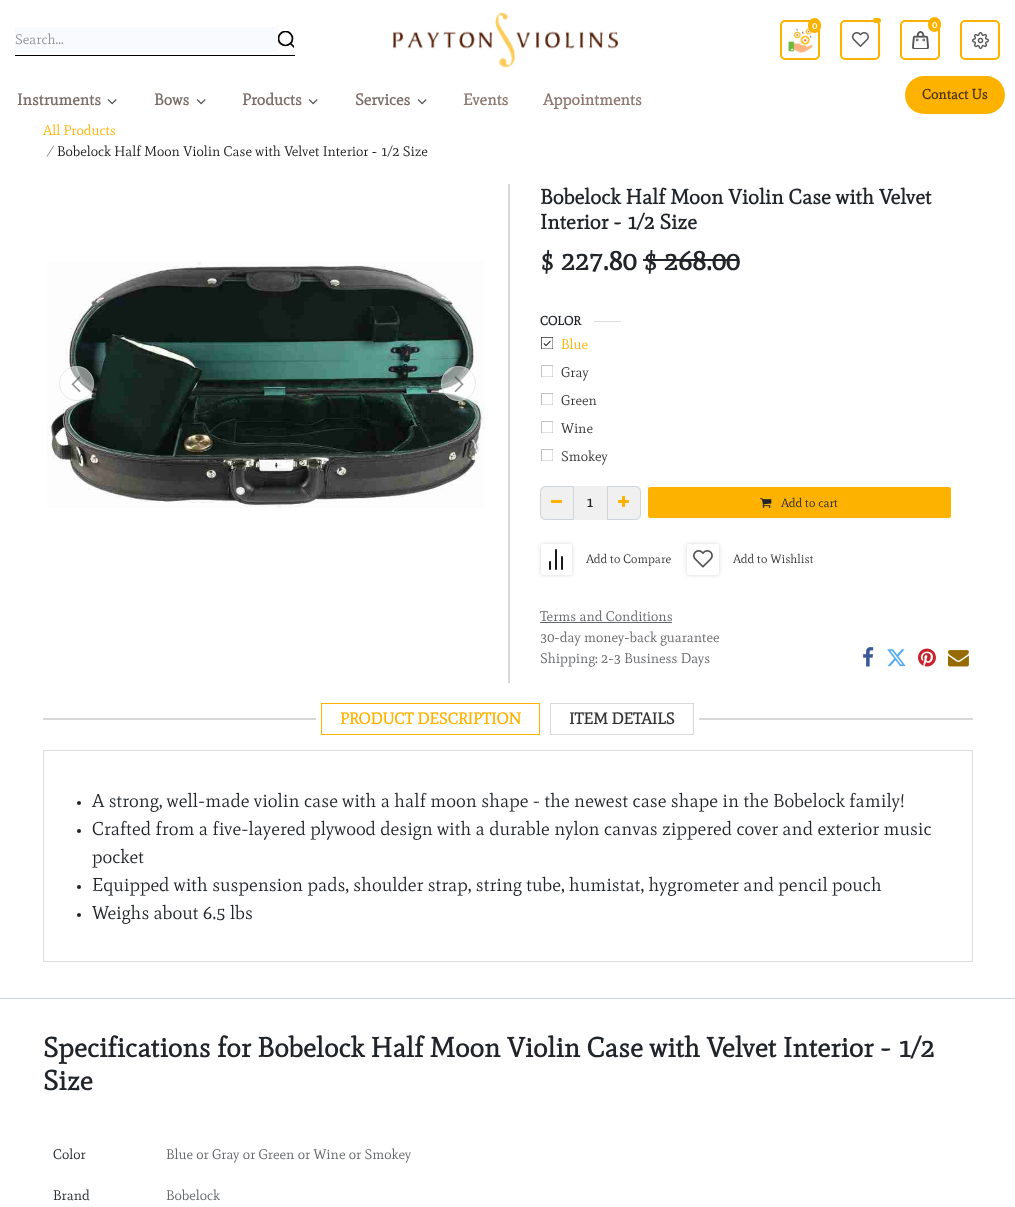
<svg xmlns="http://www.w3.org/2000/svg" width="1015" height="1207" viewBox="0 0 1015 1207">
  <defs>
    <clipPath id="clip1"><rect x="278" y="31" width="17" height="17"/></clipPath>
    <clipPath id="clip2"><rect x="541" y="365" width="12" height="12"/></clipPath>
    <clipPath id="clip3"><rect x="541" y="393" width="12" height="12"/></clipPath>
    <clipPath id="clip4"><rect x="541" y="421" width="12" height="12"/></clipPath>
    <clipPath id="clip5"><rect x="541" y="449" width="12" height="12"/></clipPath>
    <clipPath id="clip6"><path d="M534 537H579V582H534ZM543 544H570C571 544 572 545 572 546V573C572 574 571 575 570 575H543C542 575 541 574 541 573V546C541 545 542 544 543 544Z" clip-rule="evenodd"/></clipPath>
    <clipPath id="clip7"><path d="M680 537H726V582H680ZM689 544H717C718 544 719 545 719 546V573C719 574 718 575 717 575H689C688 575 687 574 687 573V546C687 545 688 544 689 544Z" clip-rule="evenodd"/></clipPath>
  </defs>
  <rect width="100%" height="100%" fill="rgb(255,255,255)"/>
  <image x="393" y="12" width="225" height="56" href="pic1.png"/>
  <image x="788" y="28" width="25" height="25" href="pic2.png"/>
  <rect x="781" y="21" width="38" height="38" rx="4" fill="none" stroke="rgb(254,178,0)" stroke-width="2"/>
  <rect x="808" y="18" width="13" height="15" rx="6.5" fill="rgb(254,178,0)"/>
  <text x="812" y="29" font-family="Mate" font-size="10" font-weight="bold" fill="rgb(255,255,255)">0</text>
  <image x="852" y="32" width="17" height="15" href="pic3.png"/>
  <rect x="841" y="21" width="38" height="38" rx="4" fill="none" stroke="rgb(254,178,0)" stroke-width="2"/>
  <rect x="873" y="18" width="8" height="5" rx="2.5" fill="rgb(254,178,0)"/>
  <image x="912" y="31" width="17" height="18" href="pic4.png"/>
  <rect x="901" y="21" width="38" height="38" rx="4" fill="none" stroke="rgb(254,178,0)" stroke-width="2"/>
  <rect x="928" y="17" width="13" height="15" rx="6.5" fill="rgb(254,178,0)"/>
  <text x="932" y="28" font-family="Mate" font-size="10" font-weight="bold" fill="rgb(255,255,255)">0</text>
  <image x="972" y="32" width="17" height="17" href="pic5.png"/>
  <rect x="961" y="21" width="38" height="38" rx="4" fill="none" stroke="rgb(254,178,0)" stroke-width="2"/>
  <rect x="15" y="55" width="280" height="1" fill="rgb(0,0,0)"/>
  <rect x="15" y="27" width="262" height="25" fill="rgb(249,250,254)"/>
  <text x="15" y="44" font-family="Mate" font-size="14" fill="rgb(144,146,148)">Search...</text>
  <g clip-path="url(#clip1)">
    <circle cx="285.5" cy="38.5" r="7" fill="none" stroke="rgb(0,0,0)" stroke-width="1.7"/>
  </g>
  <path d="M294 47L290.5 43.5" fill="none" stroke="rgb(0,0,0)" stroke-width="1.7" stroke-linecap="round" stroke-linejoin="round"/>
  <path d="M277.5 25.5H289C292 25.5 294.5 28 294.5 31V49C294.5 52 292 54.5 289 54.5H277.5Z" fill="none" stroke="rgb(249,250,254)"/>
  <text x="17" y="105" font-family="Mate" font-size="16" font-weight="bold" fill="rgb(121,108,102)">Instruments</text>
  <image x="107" y="99" width="10" height="6" href="pic6.png"/>
  <text x="154" y="105" font-family="Mate" font-size="16" font-weight="bold" fill="rgb(121,108,102)">Bows</text>
  <image x="196" y="99" width="10" height="6" href="pic6.png"/>
  <text x="242" y="105" font-family="Mate" font-size="16" font-weight="bold" fill="rgb(121,108,102)">Products</text>
  <image x="308" y="99" width="10" height="6" href="pic6.png"/>
  <text x="355" y="105" font-family="Mate" font-size="16" font-weight="bold" fill="rgb(121,108,102)">Services</text>
  <image x="417" y="99" width="10" height="6" href="pic6.png"/>
  <g font-family="Mate" font-size="16" font-weight="bold" fill="rgb(141,121,112)">
    <text x="463" y="105">Events</text>
    <text x="543" y="105">Appointments</text>
  </g>
  <rect x="905" y="76" width="100" height="38" rx="19" fill="rgb(254,178,0)"/>
  <text x="922" y="99" font-family="Mate" font-size="14" font-weight="bold" fill="rgb(76,53,0)">Contact Us</text>
  <text x="43" y="135" font-family="Mate" font-size="14" fill="rgb(254,178,0)">All Products</text>
  <text x="47" y="156" transform="rotate(10 47 156)" font-family="Mate" font-size="15" fill="rgb(108,117,125)">/</text>
  <text x="57" y="156" font-family="Mate" font-size="14" fill="rgb(21,21,21)">Bobelock Half Moon Violin Case with Velvet Interior - 1/2 Size</text>
  <image x="47" y="261" width="438" height="247" href="pic7.png"/>
  <circle cx="76.5" cy="383.5" r="17.5" fill="rgba(255,255,255,0.5)"/>
  <circle cx="76.5" cy="383.5" r="17" fill="none" stroke="rgba(206,212,218,0.5)"/>
  <image x="71" y="376" width="10" height="17" href="pic8.png"/>
  <circle cx="458.5" cy="383.5" r="17.5" fill="rgba(255,255,255,0.5)"/>
  <circle cx="458.5" cy="383.5" r="17" fill="none" stroke="rgba(206,212,218,0.5)"/>
  <image x="454" y="376" width="10" height="17" href="pic9.png"/>
  <rect x="508" y="184" width="2" height="499" fill="rgb(216,216,216)"/>
  <g font-family="Mate" font-size="20.9" font-weight="bold" fill="rgb(33,37,41)">
    <text>
      <tspan x="540" y="204">Bobelock Half Moon Violin Case with Velvet</tspan>
      <tspan x="540" y="229">Interior - 1/2 Size</tspan>
    </text>
  </g>
  <text x="540" y="270" font-family="Mate" font-size="27.7" font-weight="bold" fill="rgb(33,37,41)">$ 227.80 $ 268.00</text>
  <rect x="643" y="259" width="96" height="2" fill="rgb(33,37,41)"/>
  <text x="540" y="325" font-family="Mate" font-size="12.5" font-weight="bold" fill="rgb(33,37,41)">COLOR</text>
  <rect x="594" y="321" width="27" height="1" fill="rgb(222,222,223)"/>
  <image x="541" y="337" width="12" height="12" href="pic10.png"/>
  <text x="561" y="349" font-family="Mate" font-size="14" fill="rgb(254,178,0)">Blue</text>
  <g clip-path="url(#clip2)">
    <path d="M541.5 365.5H553V377H541.5Z" fill="none" stroke="rgb(151,151,151)" stroke-width="0.6"/>
  </g>
  <text x="561" y="377" font-family="Mate" font-size="14" fill="rgb(51,51,51)">Gray</text>
  <g clip-path="url(#clip3)">
    <path d="M541.5 393.5H553V405H541.5Z" fill="none" stroke="rgb(151,151,151)" stroke-width="0.6"/>
  </g>
  <text x="561" y="405" font-family="Mate" font-size="14" fill="rgb(51,51,51)">Green</text>
  <g clip-path="url(#clip4)">
    <path d="M541.5 421.5H553V433H541.5Z" fill="none" stroke="rgb(151,151,151)" stroke-width="0.6"/>
  </g>
  <text x="561" y="433" font-family="Mate" font-size="14" fill="rgb(51,51,51)">Wine</text>
  <g clip-path="url(#clip5)">
    <path d="M541.5 449.5H553V461H541.5Z" fill="none" stroke="rgb(151,151,151)" stroke-width="0.6"/>
  </g>
  <text x="561" y="461" font-family="Mate" font-size="14" fill="rgb(51,51,51)">Smokey</text>
  <rect x="540" y="486" width="101" height="34" rx="4" fill="rgb(240,240,240)"/>
  <path d="M546 486.5H573.5V519.5H546C543 519.5 540.5 517 540.5 514V492C540.5 489 543 486.5 546 486.5Z" fill="none" stroke="rgb(206,212,218)"/>
  <rect x="551" y="500" width="11" height="3" fill="rgb(254,178,0)"/>
  <text x="586" y="507" font-family="Mate" font-size="14" font-weight="bold" fill="rgb(33,37,41)">1</text>
  <path d="M607.5 486.5H635C638 486.5 640.5 489 640.5 492V514C640.5 517 638 519.5 635 519.5H607.5Z" fill="none" stroke="rgb(206,212,218)"/>
  <image x="618" y="496" width="11" height="11" href="pic11.png"/>
  <rect x="648" y="487" width="303" height="31" rx="2" fill="rgb(254,178,0)"/>
  <image x="760" y="498" width="12" height="10" href="pic12.png"/>
  <text x="781" y="507" font-family="Mate" font-size="12.25" fill="rgb(33,37,41)">Add to cart</text>
  <g clip-path="url(#clip6)">
    <rect x="541" y="544" width="31" height="31" rx="2" fill="rgba(0,0,0,0.16)" filter="blur(2px)"/>
  </g>
  <path d="M562 569V557M556 569V550M550 569V562" fill="none" stroke="rgb(0,0,0)" stroke-width="1.8" stroke-linecap="round" stroke-linejoin="round"/>
  <text x="586" y="563" font-family="Mate" font-size="12.25" fill="rgb(51,51,51)">Add to Compare</text>
  <g clip-path="url(#clip7)">
    <rect x="687" y="544" width="32" height="31" rx="2" fill="rgba(0,0,0,0.16)" filter="blur(2px)"/>
  </g>
  <image x="693" y="550" width="20" height="18" href="pic13.png"/>
  <text x="733" y="563" font-family="Mate" font-size="12.25" fill="rgb(51,51,51)">Add to Wishlist</text>
  <text x="540" y="621" font-family="Mate" font-size="14" fill="rgb(100,102,105)">Terms and Conditions</text>
  <rect x="540" y="622" width="132" height="1" fill="rgb(100,102,105)"/>
  <g font-family="Mate" font-size="14" fill="rgb(100,102,105)">
    <text>
      <tspan x="540" y="642">30-day money-back guarantee</tspan>
      <tspan x="540" y="663">Shipping: 2-3 Business Days</tspan>
    </text>
  </g>
  <image x="863" y="647" width="11" height="20" href="pic14.png"/>
  <image x="887" y="649" width="19" height="18" href="pic15.png"/>
  <image x="918" y="648" width="18" height="19" href="pic16.png"/>
  <image x="948" y="650" width="21" height="17" href="pic17.png"/>
  <rect x="43" y="718" width="930" height="2" fill="rgb(216,216,216)"/>
  <rect x="316" y="718" width="383" height="2" fill="rgb(255,255,255)"/>
  <rect x="321.5" y="703.5" width="218" height="31" fill="none" stroke="rgb(254,178,0)"/>
  <text x="340" y="724" font-family="Mate" font-size="16" font-weight="bold" fill="rgb(254,178,0)">PRODUCT DESCRIPTION</text>
  <rect x="550.5" y="703.5" width="143" height="31" fill="none" stroke="rgb(216,216,216)"/>
  <text x="569" y="724" font-family="Mate" font-size="16" font-weight="bold" fill="rgb(51,51,51)">ITEM DETAILS</text>
  <rect x="43.5" y="750.5" width="929" height="211" fill="none" stroke="rgb(221,221,221)"/>
  <circle cx="79" cy="803" r="2" fill="rgb(33,37,41)"/>
  <text x="92" y="807" font-family="Mate" font-size="18.65" fill="rgb(33,37,41)">A strong, well-made violin case with a half moon shape - the newest case shape in the Bobelock family!</text>
  <circle cx="79" cy="831" r="2" fill="rgb(33,37,41)"/>
  <g font-family="Mate" font-size="18.65" fill="rgb(33,37,41)">
    <text>
      <tspan x="92" y="835">Crafted from a five-layered plywood design with a durable nylon canvas zippered cover and exterior music</tspan>
      <tspan x="92" y="863">pocket</tspan>
    </text>
  </g>
  <circle cx="79" cy="887" r="2" fill="rgb(33,37,41)"/>
  <text x="92" y="891" font-family="Mate" font-size="18.65" fill="rgb(33,37,41)">Equipped with suspension pads, shoulder strap, string tube, humistat, hygrometer and pencil pouch</text>
  <circle cx="79" cy="915" r="2" fill="rgb(33,37,41)"/>
  <text x="92" y="919" font-family="Mate" font-size="18.65" fill="rgb(33,37,41)">Weighs about 6.5 lbs</text>
  <rect x="0" y="998" width="1015" height="1" fill="rgb(206,212,218)"/>
  <g font-family="Mate" font-size="27.7" font-weight="bold" fill="rgb(33,37,41)">
    <text>
      <tspan x="43" y="1057">Specifications for Bobelock Half Moon Violin Case with Velvet Interior - 1/2</tspan>
      <tspan x="43" y="1090">Size</tspan>
    </text>
  </g>
  <text x="53" y="1159" font-family="Mate" font-size="14" fill="rgb(33,37,41)">Color</text>
  <text x="166" y="1159" font-family="Mate" font-size="14" fill="rgb(100,102,105)">Blue or Gray or Green or Wine or Smokey</text>
  <text x="53" y="1200" font-family="Mate" font-size="14" fill="rgb(33,37,41)">Brand</text>
  <text x="166" y="1200" font-family="Mate" font-size="14" fill="rgb(100,102,105)">Bobelock</text>
</svg>
